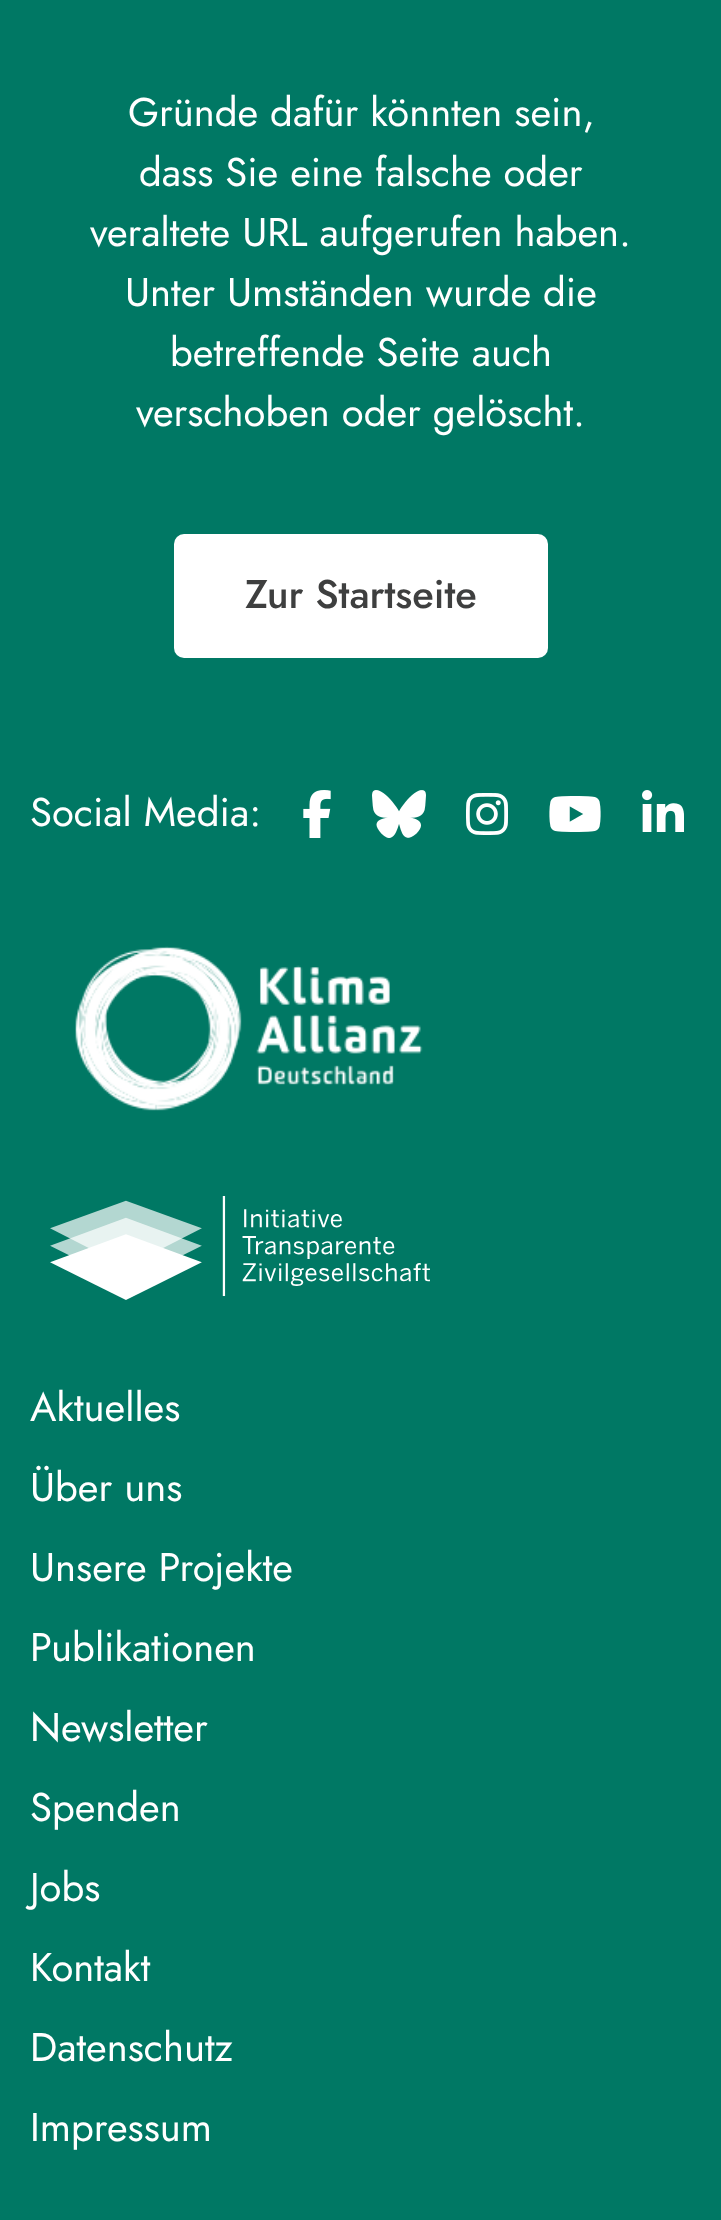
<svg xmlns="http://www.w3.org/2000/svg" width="721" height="2220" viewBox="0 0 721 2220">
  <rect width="100%" height="100%" fill="rgb(0,120,100)"/>
  <g font-family="Jost" font-size="40" fill="rgb(255,255,255)">
    <text x="128" y="126">Gründe dafür könnten sein,</text>
    <text x="139" y="186">dass Sie eine falsche oder</text>
    <text x="90" y="246">veraltete URL aufgerufen haben.</text>
    <text x="125" y="306">Unter Umständen wurde die</text>
    <text x="170" y="366">betreffende Seite auch</text>
    <text x="136" y="426">verschoben oder gelöscht.</text>
  </g>
  <rect x="174" y="534" width="374" height="124" rx="10" fill="rgb(255,255,255)"/>
  <text x="245" y="608" font-family="Jost" font-size="40" font-weight="500" fill="rgb(62,63,63)">Zur Startseite</text>
  <text x="30" y="826" font-family="Jost" font-size="40" fill="rgb(255,255,255)">Social Media:</text>
  <image x="303" y="790" width="28" height="48" href="pic1.png"/>
  <image x="372" y="790" width="54" height="48" href="pic2.png"/>
  <image x="466" y="793" width="42" height="42" href="pic3.png"/>
  <image x="549" y="796" width="52" height="36" href="pic4.png"/>
  <image x="642" y="790" width="42" height="42" href="pic5.png"/>
  <image x="75" y="946" width="348" height="165" href="pic6.png"/>
  <image x="50" y="1196" width="380" height="104" href="pic7.png"/>
  <g font-family="Jost" font-size="40" fill="rgb(255,255,255)">
    <text x="30" y="1421">Aktuelles</text>
    <text x="30" y="1501">Über uns</text>
    <text x="30" y="1581">Unsere Projekte</text>
    <text x="30" y="1661">Publikationen</text>
    <text x="30" y="1741">Newsletter</text>
    <text x="30" y="1821">Spenden</text>
    <text x="30" y="1901">Jobs</text>
    <text x="30" y="1981">Kontakt</text>
    <text x="30" y="2061">Datenschutz</text>
    <text x="30" y="2141">Impressum</text>
  </g>
</svg>
